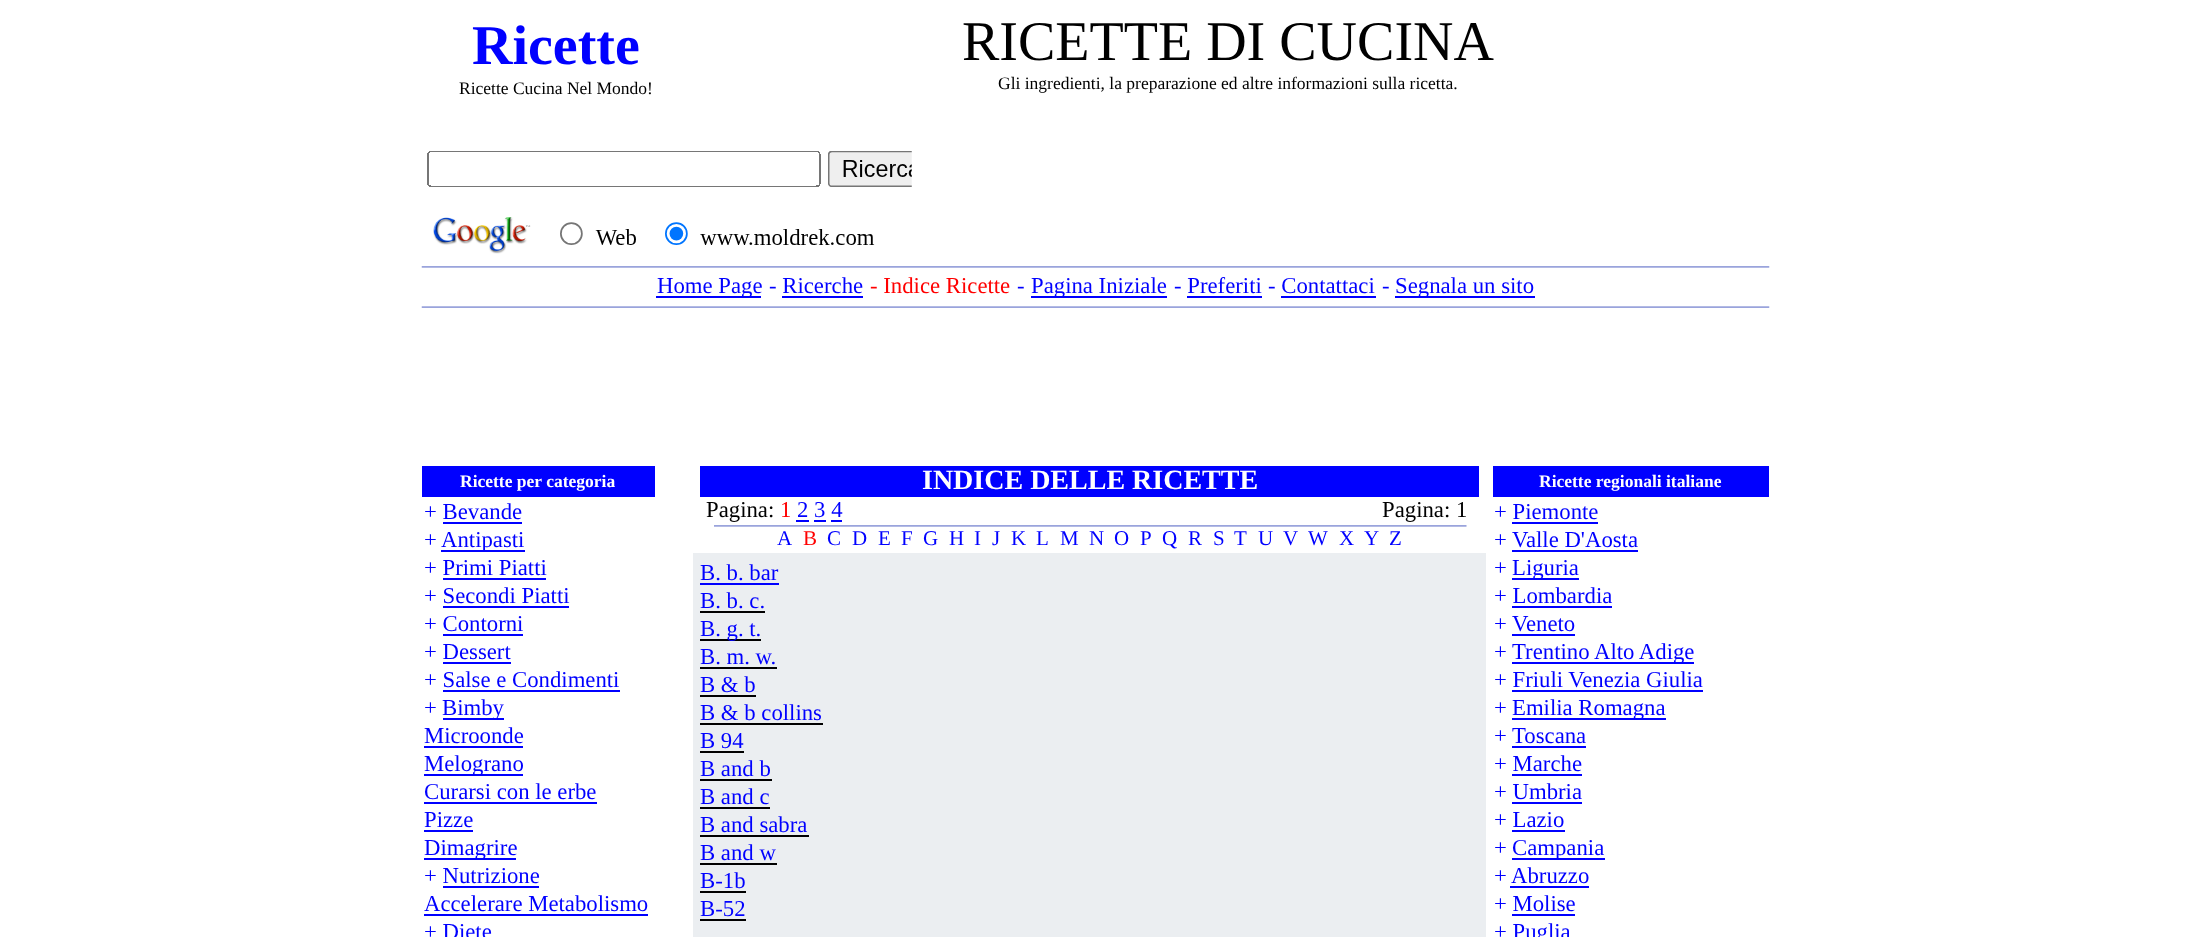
<svg xmlns="http://www.w3.org/2000/svg" width="2190" height="937" viewBox="0 0 2190 937">
  <rect width="100%" height="100%" fill="rgb(255,255,255)"/>
  <text x="472" y="64" font-family="Liberation Serif" font-size="56" font-weight="bold" fill="rgb(0,0,255)">Ricette</text>
  <text x="459" y="94" font-family="Liberation Serif" font-size="17.5" fill="rgb(0,0,0)">Ricette Cucina Nel Mondo!</text>
  <text x="962" y="60" font-family="Liberation Serif" font-size="56" fill="rgb(0,0,0)">RICETTE DI CUCINA</text>
  <text x="998" y="89" font-family="Liberation Serif" font-size="17.5" fill="rgb(0,0,0)">Gli ingredienti, la preparazione ed altre informazioni sulla ricetta.</text>
  <image x="427" y="151" width="485" height="103" href="pic1.png"/>
  <image x="421" y="266" width="1349" height="2" href="pic2.png"/>
  <rect x="656" y="296" width="105" height="2" fill="rgb(0,0,255)"/>
  <g font-family="Liberation Serif" font-size="22.75" fill="rgb(0,0,255)">
    <text x="657" y="293">Home Page</text>
    <text x="769" y="293">- Ricerche</text>
  </g>
  <rect x="782" y="296" width="81" height="2" fill="rgb(0,0,255)"/>
  <text x="870" y="293" font-family="Liberation Serif" font-size="22.75" fill="rgb(255,0,0)">- Indice Ricette</text>
  <text x="1017" y="293" font-family="Liberation Serif" font-size="22.75" fill="rgb(0,0,255)">-</text>
  <rect x="1031" y="296" width="136" height="2" fill="rgb(0,0,255)"/>
  <g font-family="Liberation Serif" font-size="22.75" fill="rgb(0,0,255)">
    <text x="1031" y="293">Pagina Iniziale</text>
    <text x="1174" y="293">- Preferiti</text>
  </g>
  <rect x="1187" y="296" width="75" height="2" fill="rgb(0,0,255)"/>
  <text x="1268" y="293" font-family="Liberation Serif" font-size="22.75" fill="rgb(0,0,255)">- Contattaci</text>
  <rect x="1281" y="296" width="95" height="2" fill="rgb(0,0,255)"/>
  <text x="1382" y="293" font-family="Liberation Serif" font-size="22.75" fill="rgb(0,0,255)">-</text>
  <rect x="1395" y="296" width="140" height="2" fill="rgb(0,0,255)"/>
  <text x="1395" y="293" font-family="Liberation Serif" font-size="22.75" fill="rgb(0,0,255)">Segnala un sito</text>
  <image x="421" y="306" width="1349" height="2" href="pic3.png"/>
  <rect x="422" y="466" width="233" height="31" fill="rgb(0,0,255)"/>
  <text x="460" y="487" font-family="Liberation Serif" font-size="17.5" font-weight="bold" fill="rgb(255,255,255)">Ricette per categoria</text>
  <text x="424" y="519" font-family="Liberation Serif" font-size="22.75" fill="rgb(0,0,255)">+ Bevande</text>
  <rect x="443" y="522" width="79" height="2" fill="rgb(0,0,255)"/>
  <text x="424" y="547" font-family="Liberation Serif" font-size="22.75" fill="rgb(0,0,255)">+</text>
  <rect x="441" y="550" width="84" height="2" fill="rgb(0,0,255)"/>
  <g font-family="Liberation Serif" font-size="22.75" fill="rgb(0,0,255)">
    <text x="441" y="547">Antipasti</text>
    <text x="424" y="575">+ Primi Piatti</text>
  </g>
  <rect x="443" y="578" width="103" height="2" fill="rgb(0,0,255)"/>
  <text x="424" y="603" font-family="Liberation Serif" font-size="22.75" fill="rgb(0,0,255)">+ Secondi Piatti</text>
  <rect x="443" y="606" width="126" height="2" fill="rgb(0,0,255)"/>
  <text x="424" y="631" font-family="Liberation Serif" font-size="22.75" fill="rgb(0,0,255)">+ Contorni</text>
  <rect x="443" y="634" width="80" height="2" fill="rgb(0,0,255)"/>
  <text x="424" y="659" font-family="Liberation Serif" font-size="22.75" fill="rgb(0,0,255)">+ Dessert</text>
  <rect x="443" y="662" width="68" height="2" fill="rgb(0,0,255)"/>
  <text x="424" y="687" font-family="Liberation Serif" font-size="22.75" fill="rgb(0,0,255)">+ Salse e Condimenti</text>
  <rect x="443" y="690" width="177" height="2" fill="rgb(0,0,255)"/>
  <text x="424" y="715" font-family="Liberation Serif" font-size="22.75" fill="rgb(0,0,255)">+</text>
  <rect x="443" y="718" width="61" height="2" fill="rgb(0,0,255)"/>
  <g font-family="Liberation Serif" font-size="22.75" fill="rgb(0,0,255)">
    <text x="442" y="715">Bimby</text>
    <text x="424" y="743">Microonde</text>
  </g>
  <rect x="424" y="746" width="99" height="2" fill="rgb(0,0,255)"/>
  <rect x="424" y="774" width="99" height="2" fill="rgb(0,0,255)"/>
  <g font-family="Liberation Serif" font-size="22.75" fill="rgb(0,0,255)">
    <text>
      <tspan x="424" y="771">Melograno</tspan>
      <tspan x="424" y="799">Curarsi con le erbe</tspan>
    </text>
  </g>
  <rect x="424" y="802" width="173" height="2" fill="rgb(0,0,255)"/>
  <text x="424" y="827" font-family="Liberation Serif" font-size="22.75" fill="rgb(0,0,255)">Pizze</text>
  <rect x="424" y="830" width="49" height="2" fill="rgb(0,0,255)"/>
  <rect x="424" y="858" width="92" height="2" fill="rgb(0,0,255)"/>
  <g font-family="Liberation Serif" font-size="22.75" fill="rgb(0,0,255)">
    <text>
      <tspan x="424" y="855">Dimagrire</tspan>
      <tspan x="424" y="883">+ Nutrizione</tspan>
    </text>
  </g>
  <rect x="443" y="886" width="96" height="2" fill="rgb(0,0,255)"/>
  <text x="424" y="911" font-family="Liberation Serif" font-size="22.75" fill="rgb(0,0,255)">Accelerare Metabolismo</text>
  <rect x="424" y="914" width="224" height="2" fill="rgb(0,0,255)"/>
  <text x="424" y="939" font-family="Liberation Serif" font-size="22.75" fill="rgb(0,0,255)">+ Diete</text>
  <rect x="700" y="466" width="779" height="31" fill="rgb(0,0,255)"/>
  <text x="922" y="489" font-family="Liberation Serif" font-size="28" font-weight="bold" fill="rgb(255,255,255)">INDICE DELLE RICETTE</text>
  <text x="706" y="517" font-family="Liberation Serif" font-size="22.75" fill="rgb(0,0,0)">Pagina:</text>
  <text x="780" y="517" font-family="Liberation Serif" font-size="22.75" fill="rgb(255,0,0)">1</text>
  <text x="797" y="517" font-family="Liberation Serif" font-size="22.75" fill="rgb(0,0,255)">2 3 4</text>
  <rect x="796" y="520" width="13" height="2" fill="rgb(0,0,255)"/>
  <rect x="814" y="520" width="12" height="2" fill="rgb(0,0,255)"/>
  <rect x="831" y="520" width="11" height="2" fill="rgb(0,0,255)"/>
  <text x="1382" y="517" font-family="Liberation Serif" font-size="22.75" fill="rgb(0,0,0)">Pagina: 1</text>
  <image x="714" y="525" width="753" height="2" href="pic4.png"/>
  <text x="777" y="545" font-family="Liberation Serif" font-size="21" fill="rgb(0,0,255)">A</text>
  <text x="803" y="545" font-family="Liberation Serif" font-size="21" fill="rgb(255,0,0)">B</text>
  <g font-family="Liberation Serif" font-size="21" fill="rgb(0,0,255)">
    <text x="827" y="545">C</text>
    <text x="852" y="545">D</text>
    <text x="878" y="545">E</text>
    <text x="901" y="545">F</text>
    <text x="923" y="545">G</text>
    <text x="949" y="545">H</text>
    <text x="974" y="545">I</text>
    <text x="992" y="545">J</text>
    <text x="1011" y="545">K</text>
    <text x="1036" y="545">L</text>
    <text x="1060" y="545">M</text>
    <text x="1089" y="545">N</text>
    <text x="1114" y="545">O</text>
    <text x="1140" y="545">P</text>
    <text x="1162" y="545">Q</text>
    <text x="1188" y="545">R</text>
    <text x="1213" y="545">S</text>
    <text x="1234" y="545">T</text>
    <text x="1258" y="545">U</text>
    <text x="1283" y="545">V</text>
    <text x="1308" y="545">W</text>
    <text x="1339" y="545">X</text>
    <text x="1364" y="545">Y</text>
    <text x="1389" y="545">Z</text>
  </g>
  <rect x="693" y="553" width="793" height="384" fill="rgb(235,238,241)"/>
  <text x="700" y="580" font-family="Liberation Serif" font-size="22.75" fill="rgb(0,0,255)">B. b. bar</text>
  <rect x="700" y="583" width="79" height="2" fill="rgb(0,0,255)"/>
  <text x="700" y="608" font-family="Liberation Serif" font-size="22.75" fill="rgb(0,0,255)">B. b. c.</text>
  <rect x="700" y="611" width="65" height="2" fill="rgb(0,0,0)"/>
  <rect x="700" y="639" width="61" height="2" fill="rgb(0,0,0)"/>
  <g font-family="Liberation Serif" font-size="22.75" fill="rgb(0,0,255)">
    <text>
      <tspan x="700" y="636">B. g. t.</tspan>
      <tspan x="700" y="664">B. m. w.</tspan>
    </text>
  </g>
  <rect x="700" y="667" width="77" height="2" fill="rgb(0,0,0)"/>
  <text x="700" y="692" font-family="Liberation Serif" font-size="22.75" fill="rgb(0,0,255)">B &amp; b</text>
  <rect x="700" y="695" width="56" height="2" fill="rgb(0,0,0)"/>
  <text x="700" y="720" font-family="Liberation Serif" font-size="22.75" fill="rgb(0,0,255)">B &amp; b collins</text>
  <rect x="700" y="723" width="123" height="2" fill="rgb(0,0,0)"/>
  <text x="700" y="748" font-family="Liberation Serif" font-size="22.75" fill="rgb(0,0,255)">B 94</text>
  <rect x="700" y="751" width="44" height="2" fill="rgb(0,0,0)"/>
  <text x="700" y="776" font-family="Liberation Serif" font-size="22.75" fill="rgb(0,0,255)">B and b</text>
  <rect x="700" y="779" width="72" height="2" fill="rgb(0,0,0)"/>
  <text x="700" y="804" font-family="Liberation Serif" font-size="22.75" fill="rgb(0,0,255)">B and c</text>
  <rect x="700" y="807" width="70" height="2" fill="rgb(0,0,0)"/>
  <text x="700" y="832" font-family="Liberation Serif" font-size="22.75" fill="rgb(0,0,255)">B and sabra</text>
  <rect x="700" y="835" width="109" height="2" fill="rgb(0,0,0)"/>
  <text x="700" y="860" font-family="Liberation Serif" font-size="22.75" fill="rgb(0,0,255)">B and w</text>
  <rect x="700" y="863" width="77" height="2" fill="rgb(0,0,0)"/>
  <text x="700" y="888" font-family="Liberation Serif" font-size="22.75" fill="rgb(0,0,255)">B-1b</text>
  <rect x="700" y="891" width="46" height="2" fill="rgb(0,0,0)"/>
  <text x="700" y="916" font-family="Liberation Serif" font-size="22.75" fill="rgb(0,0,255)">B-52</text>
  <rect x="700" y="919" width="46" height="2" fill="rgb(0,0,0)"/>
  <rect x="1493" y="466" width="276" height="31" fill="rgb(0,0,255)"/>
  <text x="1539" y="487" font-family="Liberation Serif" font-size="17.5" font-weight="bold" fill="rgb(255,255,255)">Ricette regionali italiane</text>
  <text x="1494" y="519" font-family="Liberation Serif" font-size="22.75" fill="rgb(0,0,255)">+ Piemonte</text>
  <rect x="1512" y="522" width="86" height="2" fill="rgb(0,0,255)"/>
  <g font-family="Liberation Serif" font-size="22.75" fill="rgb(0,0,255)">
    <text x="1494" y="547">+</text>
    <text x="1512" y="547">Valle D'Aosta</text>
  </g>
  <rect x="1512" y="550" width="126" height="2" fill="rgb(0,0,255)"/>
  <text x="1494" y="575" font-family="Liberation Serif" font-size="22.75" fill="rgb(0,0,255)">+</text>
  <rect x="1512" y="578" width="67" height="2" fill="rgb(0,0,255)"/>
  <g font-family="Liberation Serif" font-size="22.75" fill="rgb(0,0,255)">
    <text x="1512" y="575">Liguria</text>
    <text x="1494" y="603">+ Lombardia</text>
  </g>
  <rect x="1512" y="606" width="100" height="2" fill="rgb(0,0,255)"/>
  <g font-family="Liberation Serif" font-size="22.75" fill="rgb(0,0,255)">
    <text x="1494" y="631">+</text>
    <text x="1512" y="631">Veneto</text>
  </g>
  <rect x="1512" y="634" width="63" height="2" fill="rgb(0,0,255)"/>
  <text x="1494" y="659" font-family="Liberation Serif" font-size="22.75" fill="rgb(0,0,255)">+</text>
  <rect x="1512" y="662" width="182" height="2" fill="rgb(0,0,255)"/>
  <g font-family="Liberation Serif" font-size="22.75" fill="rgb(0,0,255)">
    <text x="1512" y="659">Trentino Alto Adige</text>
    <text x="1494" y="687">+ Friuli Venezia Giulia</text>
  </g>
  <rect x="1512" y="690" width="191" height="2" fill="rgb(0,0,255)"/>
  <text x="1494" y="715" font-family="Liberation Serif" font-size="22.75" fill="rgb(0,0,255)">+</text>
  <rect x="1512" y="718" width="154" height="2" fill="rgb(0,0,255)"/>
  <g font-family="Liberation Serif" font-size="22.75" fill="rgb(0,0,255)">
    <text x="1512" y="715">Emilia Romagna</text>
    <text x="1494" y="743">+</text>
    <text x="1512" y="743">Toscana</text>
  </g>
  <rect x="1512" y="746" width="74" height="2" fill="rgb(0,0,255)"/>
  <text x="1494" y="771" font-family="Liberation Serif" font-size="22.75" fill="rgb(0,0,255)">+ Marche</text>
  <rect x="1512" y="774" width="70" height="2" fill="rgb(0,0,255)"/>
  <text x="1494" y="799" font-family="Liberation Serif" font-size="22.75" fill="rgb(0,0,255)">+ Umbria</text>
  <rect x="1512" y="802" width="70" height="2" fill="rgb(0,0,255)"/>
  <text x="1494" y="827" font-family="Liberation Serif" font-size="22.75" fill="rgb(0,0,255)">+ Lazio</text>
  <rect x="1512" y="830" width="53" height="2" fill="rgb(0,0,255)"/>
  <text x="1494" y="855" font-family="Liberation Serif" font-size="22.75" fill="rgb(0,0,255)">+</text>
  <rect x="1512" y="858" width="93" height="2" fill="rgb(0,0,255)"/>
  <g font-family="Liberation Serif" font-size="22.75" fill="rgb(0,0,255)">
    <text x="1512" y="855">Campania</text>
    <text x="1494" y="883">+</text>
    <text x="1511" y="883">Abruzzo</text>
  </g>
  <rect x="1510" y="886" width="79" height="2" fill="rgb(0,0,255)"/>
  <text x="1494" y="911" font-family="Liberation Serif" font-size="22.75" fill="rgb(0,0,255)">+ Molise</text>
  <rect x="1512" y="914" width="63" height="2" fill="rgb(0,0,255)"/>
  <text x="1494" y="939" font-family="Liberation Serif" font-size="22.75" fill="rgb(0,0,255)">+ Puglia</text>
</svg>
